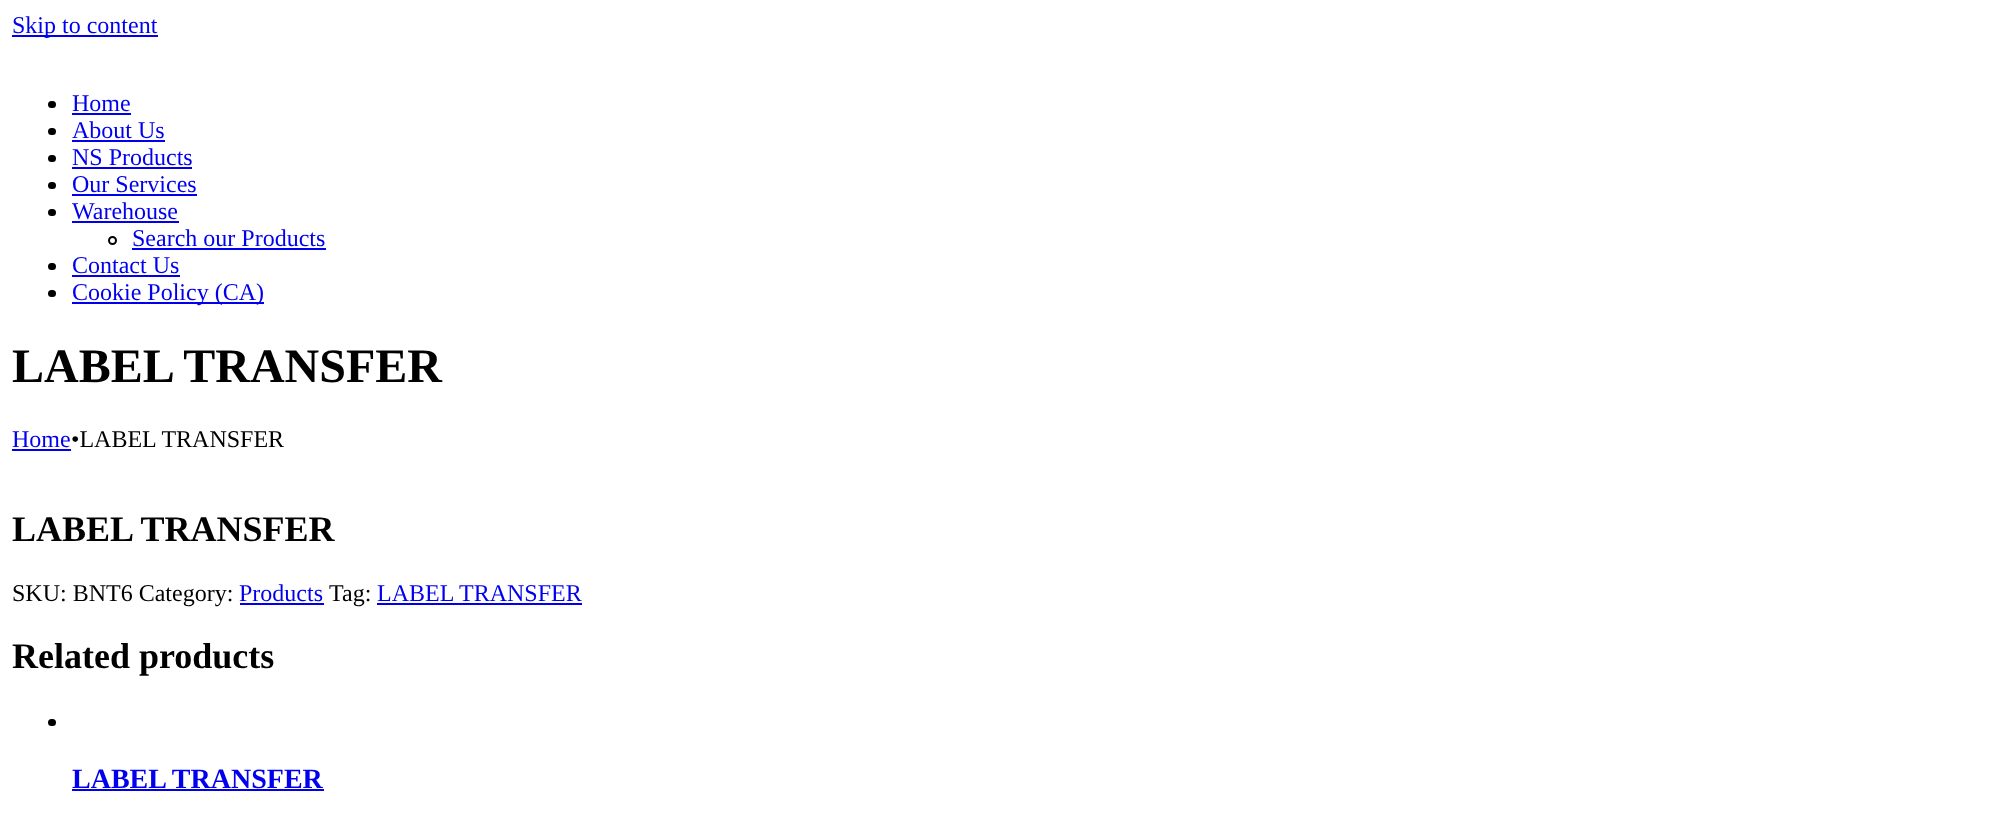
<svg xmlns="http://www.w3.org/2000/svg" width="2006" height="830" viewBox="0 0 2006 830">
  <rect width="100%" height="100%" fill="rgb(255,255,255)"/>
  <rect x="12" y="35" width="146" height="2" fill="rgb(0,0,238)"/>
  <text x="12" y="33" font-family="Liberation Serif" font-size="24" fill="rgb(0,0,238)">Skip to content</text>
  <rect x="48" y="101" width="8" height="7" rx="3.5" fill="rgb(0,0,0)"/>
  <text x="72" y="111" font-family="Liberation Serif" font-size="24" fill="rgb(0,0,238)">Home</text>
  <rect x="72" y="113" width="59" height="2" fill="rgb(0,0,238)"/>
  <rect x="48" y="128" width="8" height="7" rx="3.5" fill="rgb(0,0,0)"/>
  <text x="72" y="138" font-family="Liberation Serif" font-size="24" fill="rgb(0,0,238)">About Us</text>
  <rect x="72" y="140" width="93" height="2" fill="rgb(0,0,238)"/>
  <rect x="48" y="155" width="8" height="7" rx="3.5" fill="rgb(0,0,0)"/>
  <text x="72" y="165" font-family="Liberation Serif" font-size="24" fill="rgb(0,0,238)">NS Products</text>
  <rect x="72" y="167" width="120" height="2" fill="rgb(0,0,238)"/>
  <rect x="48" y="182" width="8" height="7" rx="3.5" fill="rgb(0,0,0)"/>
  <text x="72" y="192" font-family="Liberation Serif" font-size="24" fill="rgb(0,0,238)">Our Services</text>
  <rect x="72" y="194" width="125" height="2" fill="rgb(0,0,238)"/>
  <rect x="48" y="209" width="8" height="7" rx="3.5" fill="rgb(0,0,0)"/>
  <text x="72" y="219" font-family="Liberation Serif" font-size="24" fill="rgb(0,0,238)">Warehouse</text>
  <rect x="72" y="221" width="107" height="2" fill="rgb(0,0,238)"/>
  <circle cx="112.5" cy="240.5" r="3.5" fill="none" stroke="rgb(0,0,0)" stroke-width="2"/>
  <text x="132" y="246" font-family="Liberation Serif" font-size="24" fill="rgb(0,0,238)">Search our Products</text>
  <rect x="132" y="248" width="194" height="2" fill="rgb(0,0,238)"/>
  <rect x="48" y="263" width="8" height="7" rx="3.5" fill="rgb(0,0,0)"/>
  <text x="72" y="273" font-family="Liberation Serif" font-size="24" fill="rgb(0,0,238)">Contact Us</text>
  <rect x="72" y="275" width="108" height="2" fill="rgb(0,0,238)"/>
  <rect x="48" y="290" width="8" height="7" rx="3.5" fill="rgb(0,0,0)"/>
  <rect x="72" y="302" width="192" height="2" fill="rgb(0,0,238)"/>
  <text x="72" y="300" font-family="Liberation Serif" font-size="24" fill="rgb(0,0,238)">Cookie Policy (CA)</text>
  <text x="12" y="382" font-family="Liberation Serif" font-size="48" font-weight="bold" fill="rgb(0,0,0)">LABEL TRANSFER</text>
  <text x="12" y="447" font-family="Liberation Serif" font-size="24" fill="rgb(0,0,238)">Home</text>
  <rect x="12" y="449" width="59" height="2" fill="rgb(0,0,238)"/>
  <text x="71" y="447" font-family="Liberation Serif" font-size="24" fill="rgb(0,0,0)">•LABEL TRANSFER</text>
  <text x="12" y="541" font-family="Liberation Serif" font-size="36" font-weight="bold" fill="rgb(0,0,0)">LABEL TRANSFER</text>
  <text x="12" y="601" font-family="Liberation Serif" font-size="24" fill="rgb(0,0,0)">SKU: BNT6 Category:</text>
  <text x="239" y="601" font-family="Liberation Serif" font-size="24" fill="rgb(0,0,238)">Products</text>
  <rect x="240" y="603" width="84" height="2" fill="rgb(0,0,238)"/>
  <text x="329" y="601" font-family="Liberation Serif" font-size="24" fill="rgb(0,0,0)">Tag:</text>
  <text x="377" y="601" font-family="Liberation Serif" font-size="24" fill="rgb(0,0,238)">LABEL TRANSFER</text>
  <rect x="377" y="603" width="205" height="2" fill="rgb(0,0,238)"/>
  <text x="12" y="668" font-family="Liberation Serif" font-size="36" font-weight="bold" fill="rgb(0,0,0)">Related products</text>
  <rect x="48" y="719" width="8" height="7" rx="3.5" fill="rgb(0,0,0)"/>
  <text x="72" y="788" font-family="Liberation Serif" font-size="28" font-weight="bold" fill="rgb(0,0,238)">LABEL TRANSFER</text>
  <rect x="72" y="789" width="252" height="2" fill="rgb(0,0,238)"/>
</svg>
